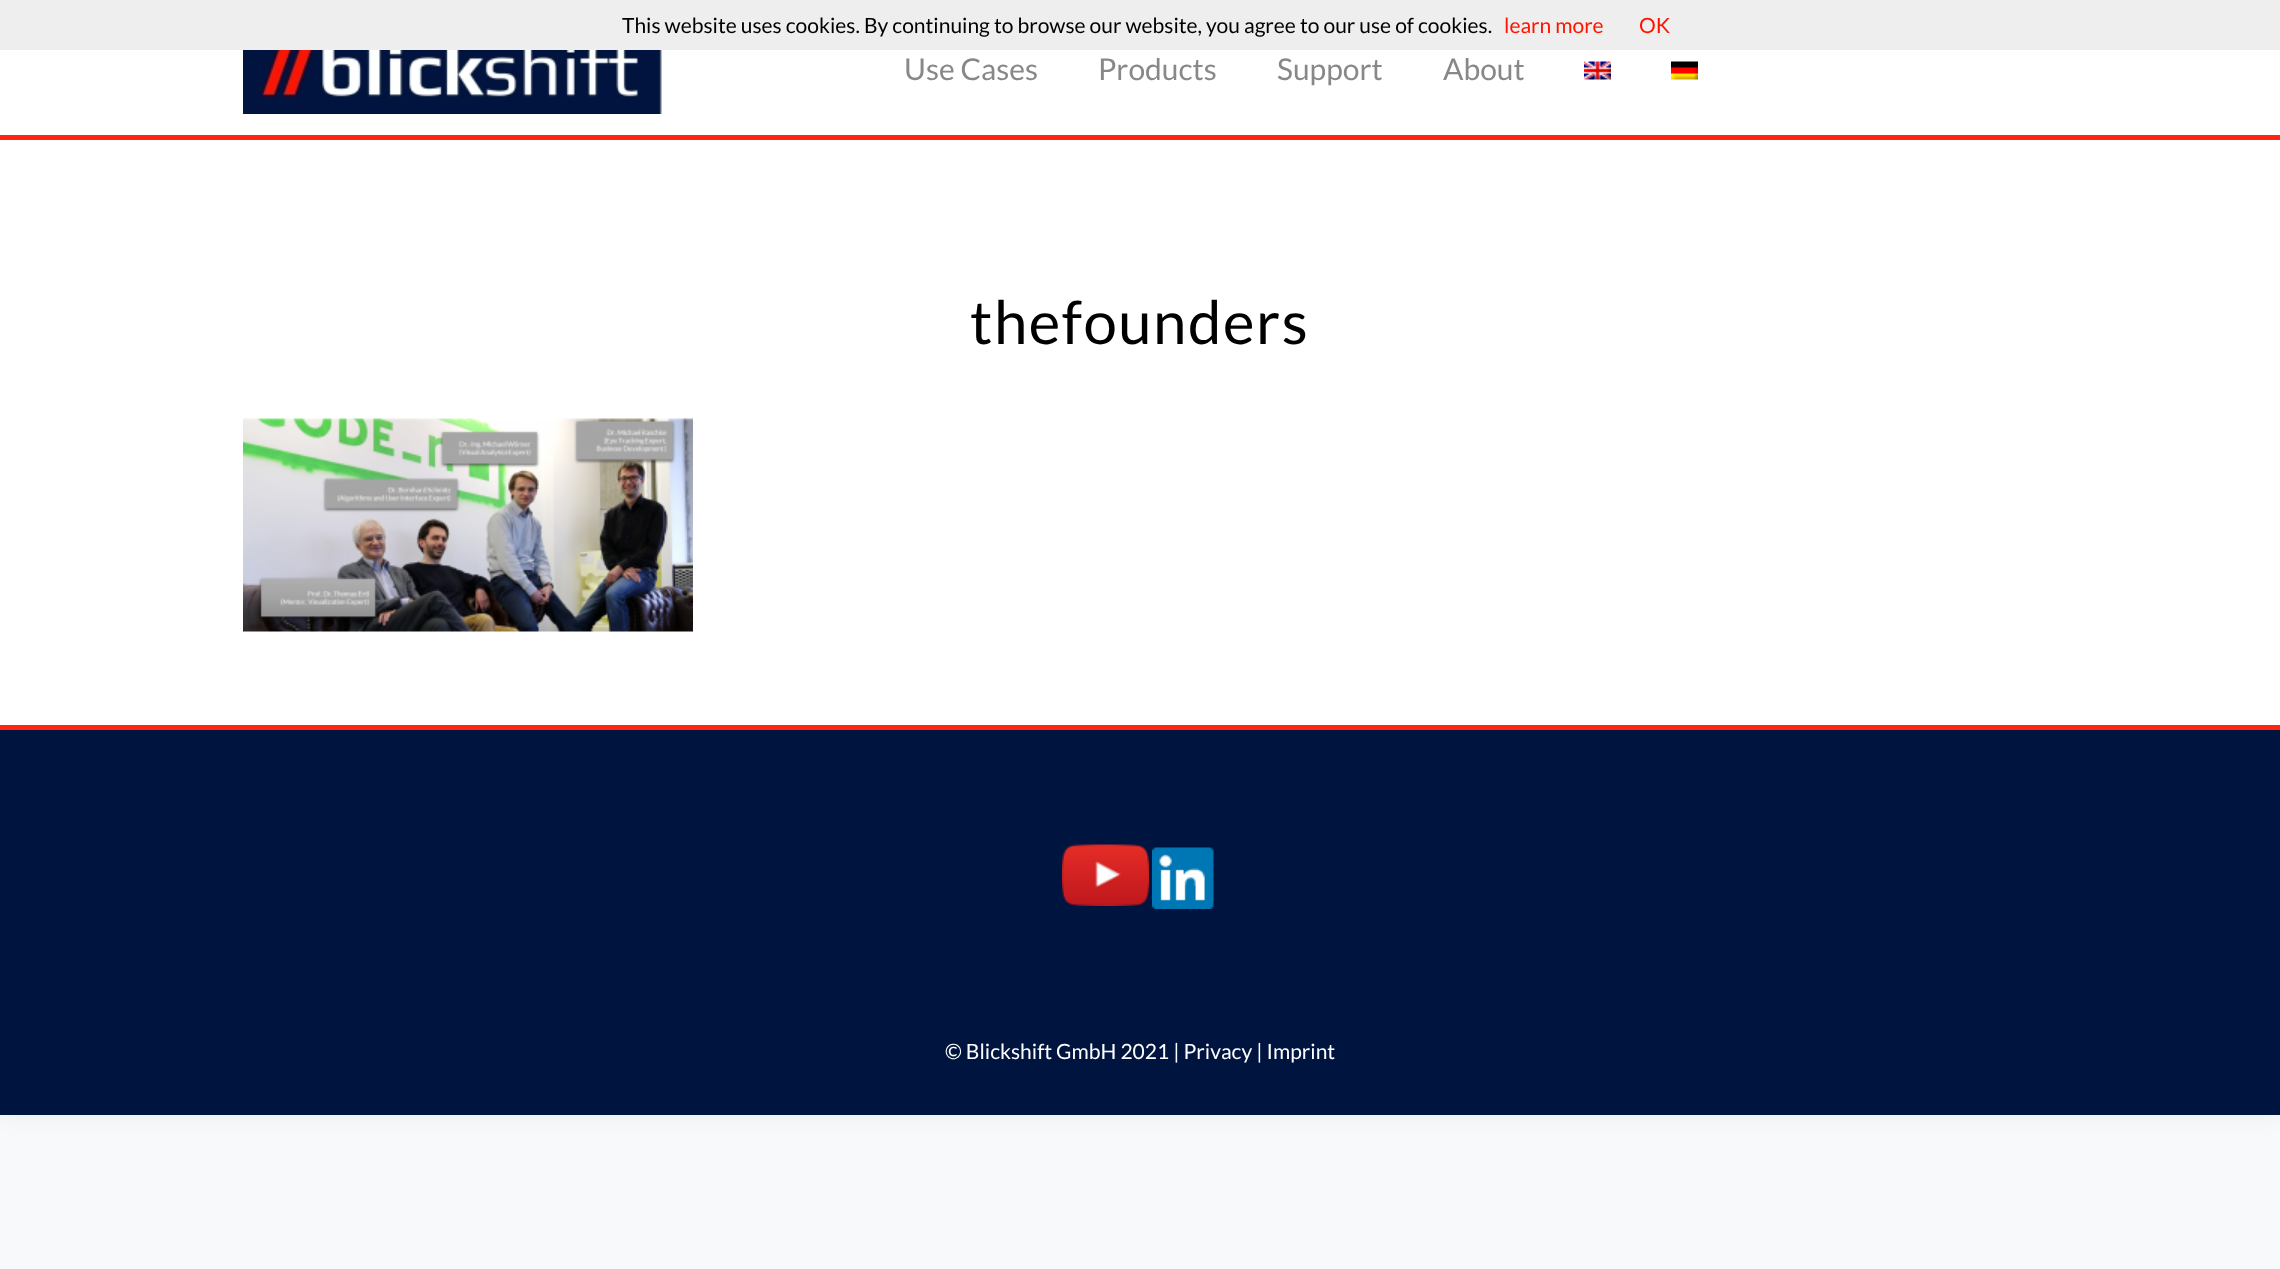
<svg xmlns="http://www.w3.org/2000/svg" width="2280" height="1269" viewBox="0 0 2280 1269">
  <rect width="100%" height="100%" fill="rgb(247,249,250)"/>
  <rect x="0" y="0" width="2280" height="1115" fill="rgba(0,0,0,0.06)" filter="blur(11px)"/>
  <rect x="0" y="0" width="2280" height="50" fill="rgb(238,238,238)"/>
  <text x="622" y="33" font-family="Lato" font-size="21" fill="rgb(0,0,0)">This website uses cookies. By continuing to browse our website, you agree to our use of cookies.</text>
  <g font-family="Lato" font-size="21" fill="rgb(255,20,0)">
    <text x="1504" y="33">learn more</text>
    <text x="1639" y="33">OK</text>
  </g>
  <rect x="0" y="140" width="2280" height="585" fill="rgb(255,255,255)"/>
  <rect x="0" y="50" width="2280" height="85" fill="rgb(255,255,255)"/>
  <rect x="0" y="135" width="2280" height="5" fill="rgb(255,37,18)"/>
  <image x="243" y="50" width="419" height="64" href="pic1.png"/>
  <g font-family="Lato" font-size="30" fill="rgb(136,136,136)">
    <text x="904" y="80">Use Cases</text>
    <text x="1098" y="80">Products</text>
    <text x="1277" y="80">Support</text>
    <text x="1443" y="80">About</text>
  </g>
  <image x="1584" y="61" width="27" height="19" href="pic2.png"/>
  <image x="1671" y="61" width="27" height="19" href="pic3.png"/>
  <text x="970" y="344" font-family="Lato" font-size="60" letter-spacing="1.5" fill="rgb(0,0,0)">thefounders</text>
  <image x="243" y="418" width="450" height="214" href="pic4.png"/>
  <rect x="0" y="730" width="2280" height="385" fill="rgb(0,20,64)"/>
  <rect x="0" y="725" width="2280" height="5" fill="rgb(255,37,18)"/>
  <image x="1062" y="844" width="87" height="62" href="pic5.png"/>
  <image x="1152" y="847" width="62" height="62" href="pic6.png"/>
  <text x="945" y="1059" font-family="Lato" font-size="21" fill="rgb(255,255,255)">© Blickshift GmbH 2021 | Privacy | Imprint</text>
</svg>
